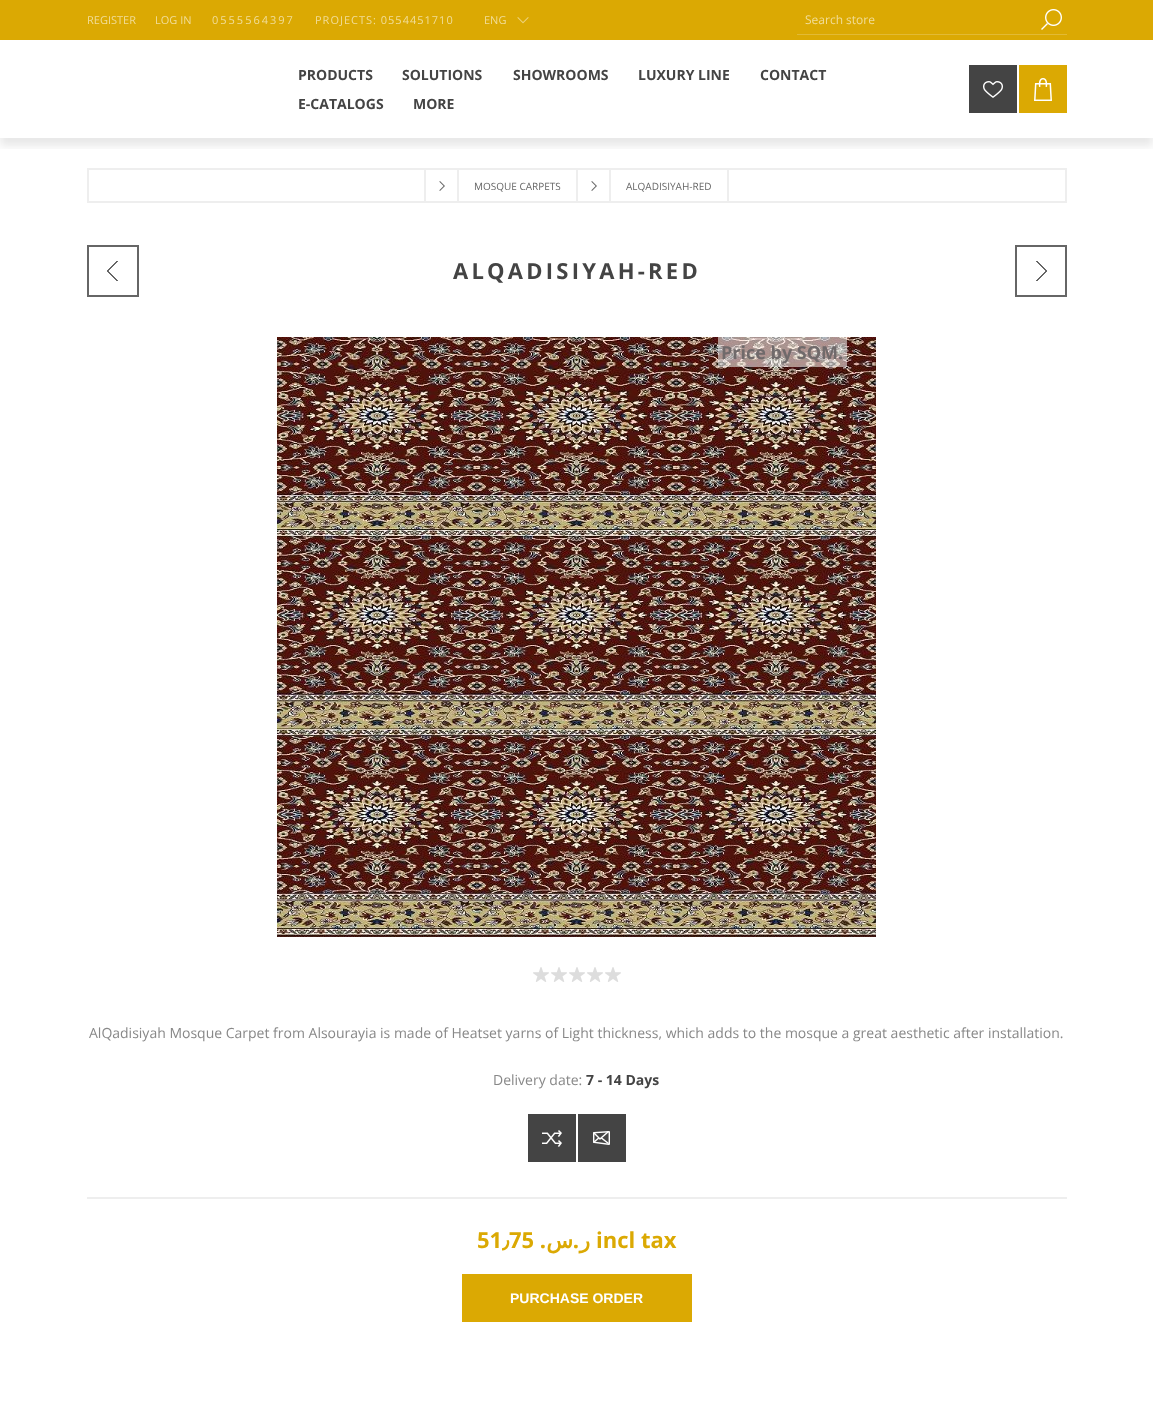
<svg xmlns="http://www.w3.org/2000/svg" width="1153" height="1412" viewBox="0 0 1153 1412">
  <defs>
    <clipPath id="clip1"><rect x="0" y="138" width="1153" height="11"/></clipPath>
  </defs>
  <rect width="100%" height="100%" fill="rgb(255,255,255)"/>
  <g clip-path="url(#clip1)">
    <rect x="0" y="8" width="1153" height="138" fill="rgba(0,0,0,0.09)" filter="blur(4px)"/>
  </g>
  <rect x="0" y="0" width="1153" height="40" fill="rgb(219,169,3)"/>
  <g font-family="Open Sans" font-size="11" fill="rgb(241,221,154)">
    <text x="87" y="24">REGISTER</text>
    <text x="155" y="24">LOG IN</text>
  </g>
  <text x="212" y="24" font-family="Open Sans" font-size="11" letter-spacing="2" fill="rgb(241,221,154)">0555564397</text>
  <text x="315" y="24" font-family="Open Sans" font-size="11" letter-spacing="1" fill="rgb(241,221,154)">PROJECTS: 0554451710</text>
  <image x="517" y="17" width="12" height="7" href="pic1.png"/>
  <text x="484" y="24" font-family="Open Sans" font-size="11" fill="rgb(241,221,154)">ENG</text>
  <rect x="797" y="34" width="270" height="1" fill="rgb(226,186,53)"/>
  <text x="805" y="24" font-family="Open Sans" font-size="12" fill="rgb(241,221,154)">Search store</text>
  <image x="1041" y="9" width="21" height="21" href="pic2.png"/>
  <g font-family="Open Sans" font-size="14" font-weight="bold" fill="rgb(68,68,68)">
    <text x="298" y="80">PRODUCTS</text>
    <text x="402" y="80">SOLUTIONS</text>
    <text x="513" y="80">SHOWROOMS</text>
    <text x="638" y="80">LUXURY LINE</text>
    <text x="760" y="80">CONTACT</text>
    <text x="298" y="109">E-CATALOGS</text>
    <text x="413" y="109">MORE</text>
  </g>
  <rect x="969" y="65" width="48" height="48" fill="rgb(68,68,68)"/>
  <image x="983" y="81" width="20" height="17" href="pic3.png"/>
  <rect x="1019" y="65" width="48" height="48" fill="rgb(219,169,3)"/>
  <image x="1034" y="78" width="18" height="23" href="pic4.png"/>
  <rect x="87" y="168" width="980" height="2" fill="rgb(238,238,238)"/>
  <rect x="1065" y="168" width="2" height="35" fill="rgb(238,238,238)"/>
  <rect x="87" y="168" width="2" height="35" fill="rgb(238,238,238)"/>
  <image x="439" y="181" width="6" height="10" href="pic5.png"/>
  <rect x="425" y="169" width="33" height="33" fill="none" stroke="rgb(238,238,238)" stroke-width="2"/>
  <rect x="458" y="169" width="119" height="33" fill="none" stroke="rgb(238,238,238)" stroke-width="2"/>
  <text x="474" y="190" font-family="Open Sans" font-size="10" fill="rgb(102,102,102)">MOSQUE CARPETS</text>
  <image x="591" y="181" width="6" height="10" href="pic5.png"/>
  <rect x="577" y="169" width="33" height="33" fill="none" stroke="rgb(238,238,238)" stroke-width="2"/>
  <rect x="610" y="169" width="118" height="33" fill="none" stroke="rgb(238,238,238)" stroke-width="2"/>
  <text x="626" y="190" font-family="Open Sans" font-size="10" fill="rgb(102,102,102)">ALQADISIYAH-RED</text>
  <rect x="89" y="201" width="976" height="2" fill="rgb(238,238,238)"/>
  <image x="107" y="261" width="11" height="20" href="pic6.png"/>
  <rect x="88" y="246" width="50" height="50" fill="none" stroke="rgb(102,102,102)" stroke-width="2"/>
  <text x="453" y="279" font-family="Open Sans" font-size="22" font-weight="bold" letter-spacing="3.25" fill="rgb(68,68,68)">ALQADISIYAH-RED</text>
  <image x="1036" y="261" width="11" height="20" href="pic7.png"/>
  <rect x="1016" y="246" width="50" height="50" fill="none" stroke="rgb(102,102,102)" stroke-width="2"/>
  <image x="277" y="337" width="599" height="600" href="pic8.png"/>
  <rect x="718" y="337" width="129" height="30" fill="rgba(255,255,255,0.54)"/>
  <text x="721" y="359" font-family="Open Sans" font-size="18" font-weight="bold" fill="rgb(112,106,107)">Price by SQM.</text>
  <image x="533" y="967" width="88" height="15" href="pic9.png"/>
  <g font-family="Open Sans" font-size="14" fill="rgb(136,136,136)">
    <text x="89" y="1038">AlQadisiyah Mosque Carpet from Alsourayia is made of Heatset yarns of Light thickness, which adds to the mosque a great aesthetic after installation.</text>
    <text x="493" y="1085">Delivery date:</text>
  </g>
  <text x="586" y="1085" font-family="Open Sans" font-size="14" font-weight="bold" fill="rgb(68,68,68)">7 - 14 Days</text>
  <rect x="87" y="1197" width="980" height="2" fill="rgb(238,238,238)"/>
  <rect x="528" y="1114" width="48" height="48" fill="rgb(68,68,68)"/>
  <image x="542" y="1130" width="20" height="17" href="pic10.png"/>
  <rect x="578" y="1114" width="48" height="48" fill="rgb(68,68,68)"/>
  <image x="593" y="1131" width="17" height="14" href="pic11.png"/>
  <text x="477" y="1248" font-family="Open Sans" font-size="22" font-weight="bold" fill="rgb(219,169,3)">51</text>
  <text x="502" y="1248" font-family="DejaVu Sans" font-size="22" font-weight="bold" fill="rgb(219,169,3)">٫</text>
  <text x="509" y="1248" font-family="Open Sans" font-size="22" font-weight="bold" fill="rgb(219,169,3)">75</text>
  <text x="546" y="1248" font-family="Open Sans" font-size="22" font-weight="bold" direction="rtl" fill="rgb(219,169,3)">.</text>
  <text x="573" y="1248" font-family="DejaVu Sans" font-size="22" font-weight="bold" direction="rtl" fill="rgb(219,169,3)">س</text>
  <text x="579" y="1248" font-family="Open Sans" font-size="22" font-weight="bold" direction="rtl" fill="rgb(219,169,3)">.</text>
  <text x="590" y="1248" font-family="DejaVu Sans" font-size="22" font-weight="bold" direction="rtl" fill="rgb(219,169,3)">ر</text>
  <text x="596" y="1248" font-family="Open Sans" font-size="22" font-weight="bold" fill="rgb(219,169,3)">incl tax</text>
  <rect x="462" y="1274" width="230" height="48" fill="rgb(219,169,3)"/>
  <text x="510" y="1303" font-family="Liberation Sans" font-size="14" font-weight="bold" fill="rgb(255,255,255)">PURCHASE ORDER</text>
</svg>
